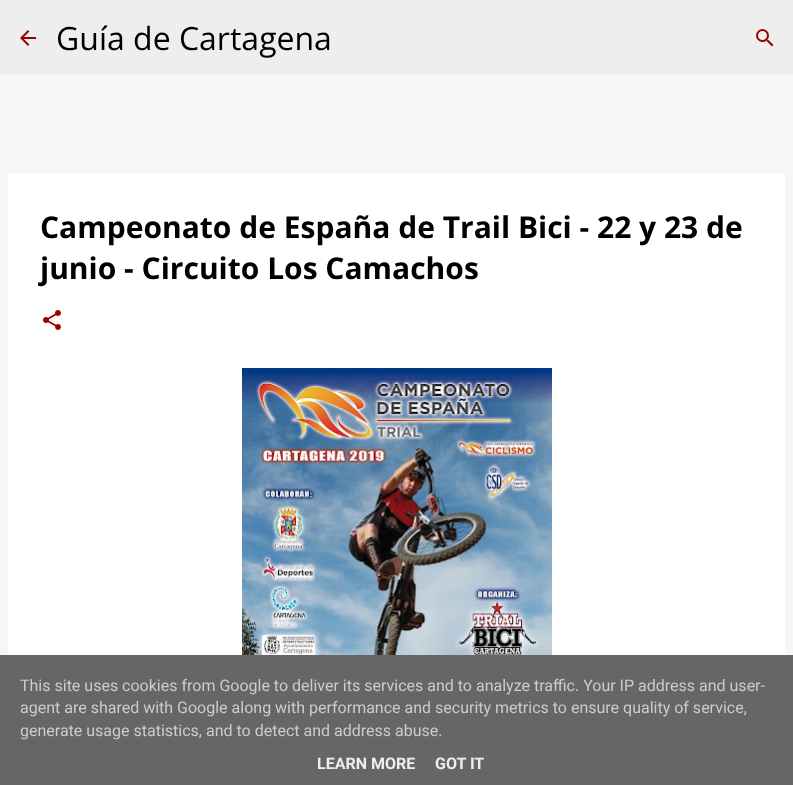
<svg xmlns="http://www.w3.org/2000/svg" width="793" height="785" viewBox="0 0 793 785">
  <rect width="100%" height="100%" fill="rgb(246,246,246)"/>
  <rect x="0" y="0" width="793" height="75" fill="rgb(238,238,238)"/>
  <image x="20" y="30" width="16" height="16" href="pic1.png"/>
  <text x="56" y="50" font-family="Open Sans" font-size="32" fill="rgb(0,0,0)">Guía de Cartagena</text>
  <image x="756" y="29" width="18" height="18" href="pic2.png"/>
  <rect x="8" y="174" width="777" height="481" fill="rgb(255,255,255)"/>
  <g font-family="Open Sans" font-size="30" font-weight="bold" fill="rgb(0,0,0)">
    <text>
      <tspan x="40" y="238">Campeonato de España de Trail Bici - 22 y 23 de</tspan>
      <tspan x="40" y="279">junio - Circuito Los Camachos</tspan>
    </text>
  </g>
  <image x="43" y="310" width="18" height="20" href="pic3.png"/>
  <image x="242" y="368" width="310" height="287" href="pic4.png"/>
  <rect x="0" y="655" width="793" height="130" fill="rgb(102,102,102)"/>
  <g font-family="Roboto" font-size="16" fill="rgb(204,204,204)">
    <text>
      <tspan x="20" y="691">This site uses cookies from Google to deliver its services and to analyze traffic. Your IP address and user-</tspan>
      <tspan x="20" y="713">agent are shared with Google along with performance and security metrics to ensure quality of service,</tspan>
      <tspan x="20" y="736">generate usage statistics, and to detect and address abuse.</tspan>
    </text>
  </g>
  <g font-family="Roboto" font-size="16" font-weight="bold" fill="rgb(238,238,238)">
    <text x="317" y="769">LEARN MORE</text>
    <text x="435" y="769">GOT IT</text>
  </g>
</svg>
